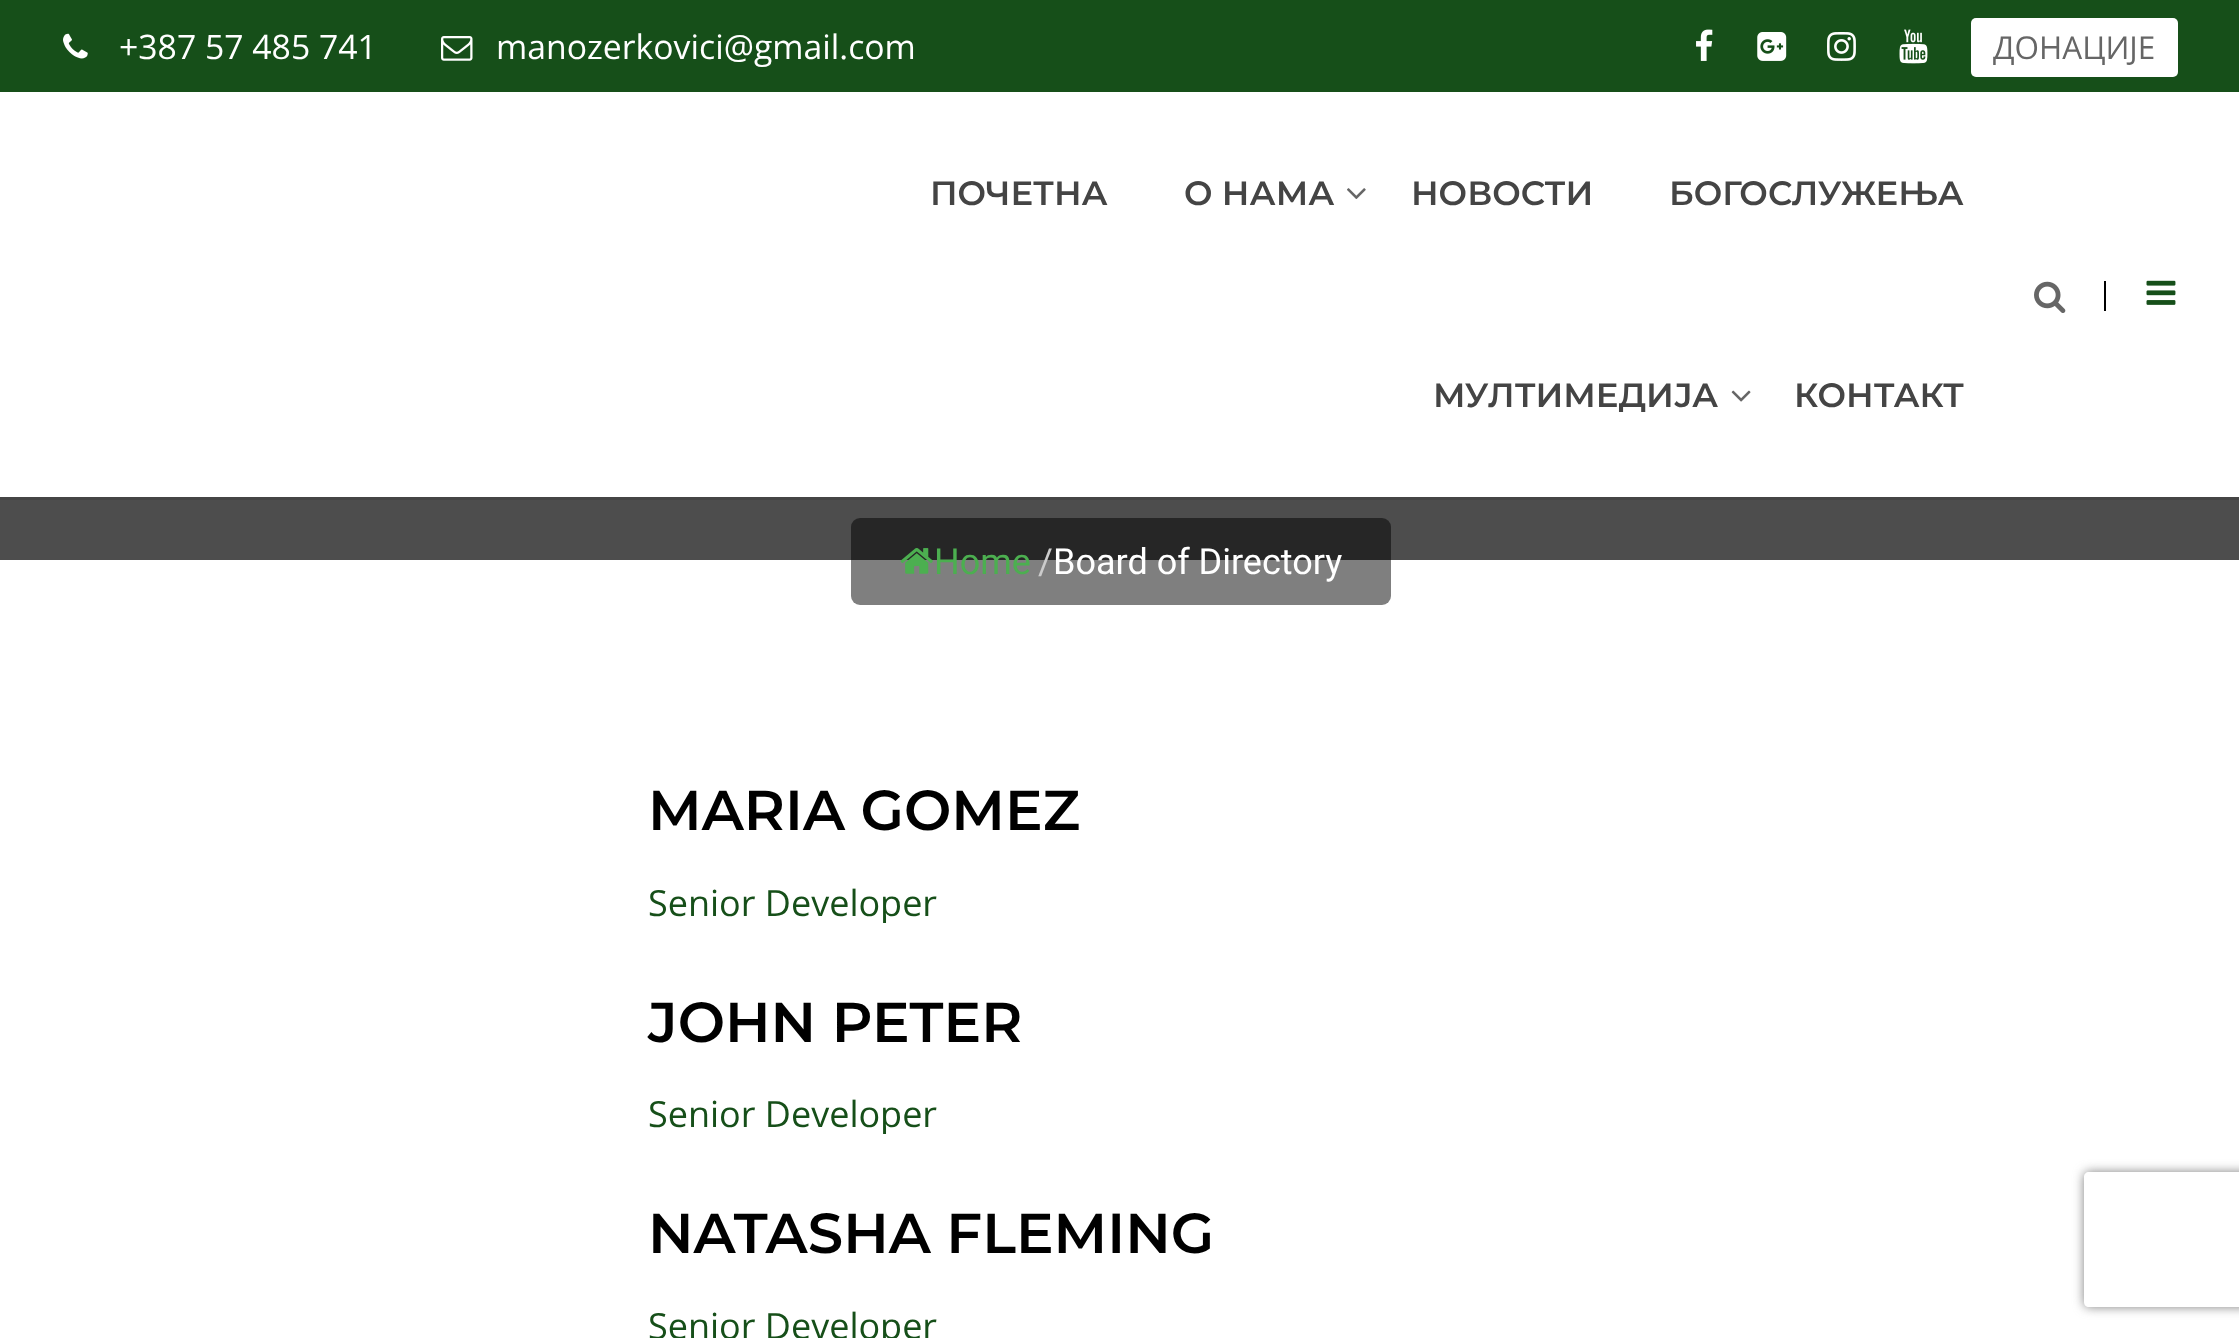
<svg xmlns="http://www.w3.org/2000/svg" width="2239" height="1338" viewBox="0 0 2239 1338">
  <defs>
    <clipPath id="clip1"><rect x="97" y="767" width="2047" height="156"/></clipPath>
    <clipPath id="clip2"><rect x="97" y="979" width="2047" height="155"/></clipPath>
    <clipPath id="clip3"><path d="M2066 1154H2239V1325H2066ZM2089 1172H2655C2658 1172 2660 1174 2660 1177V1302C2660 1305 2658 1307 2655 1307H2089C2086 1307 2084 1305 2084 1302V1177C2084 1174 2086 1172 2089 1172Z" clip-rule="evenodd"/></clipPath>
  </defs>
  <rect width="100%" height="100%" fill="rgb(255,255,255)"/>
  <rect x="0" y="0" width="2239" height="92" fill="rgb(22,79,25)"/>
  <image x="63" y="33" width="25" height="26" href="pic1.png"/>
  <text x="119" y="59" font-family="Open Sans" font-size="33.75" fill="rgb(255,255,255)">+387 57 485 741</text>
  <image x="441" y="36" width="32" height="25" href="pic2.png"/>
  <text x="496" y="59" font-family="Open Sans" font-size="33.75" fill="rgb(255,255,255)">manozerkovici@gmail.com</text>
  <image x="1696" y="29" width="17" height="32" href="pic3.png"/>
  <image x="1757" y="32" width="30" height="29" href="pic4.png"/>
  <image x="1827" y="32" width="29" height="29" href="pic5.png"/>
  <image x="1899" y="29" width="29" height="35" href="pic6.png"/>
  <rect x="1971" y="18" width="207" height="59" rx="5" fill="rgb(255,255,255)"/>
  <text x="1993" y="59" font-family="Open Sans" font-size="31.5" fill="rgb(102,102,102)">ДОНАЦИЈЕ</text>
  <rect x="0" y="497" width="2239" height="3" fill="rgb(69,69,69)"/>
  <g font-family="Montserrat" font-size="33.75" font-weight="600" fill="rgb(68,68,68)">
    <text x="930" y="205">ПОЧЕТНА</text>
    <text x="1184" y="205">О НАМА</text>
  </g>
  <image x="1347" y="188" width="19" height="11" href="pic7.png"/>
  <g font-family="Montserrat" font-size="33.75" font-weight="600" fill="rgb(68,68,68)">
    <text x="1411" y="205">НОВОСТИ</text>
    <text x="1669" y="205">БОГОСЛУЖЕЊА</text>
    <text x="1433" y="407">МУЛТИМЕДИЈА</text>
  </g>
  <image x="1731" y="390" width="20" height="12" href="pic8.png"/>
  <text x="1794" y="407" font-family="Montserrat" font-size="33.75" font-weight="600" fill="rgb(68,68,68)">КОНТАКТ</text>
  <image x="2034" y="281" width="32" height="32" href="pic9.png"/>
  <rect x="2104" y="281" width="2" height="30" fill="rgb(0,0,0)"/>
  <image x="2146" y="280" width="30" height="25" href="pic10.png"/>
  <rect x="0" y="500" width="2239" height="60" fill="rgb(77,77,77)"/>
  <rect x="851" y="518" width="540" height="87" rx="9" fill="rgba(0,0,0,0.5)"/>
  <image x="900" y="548" width="33" height="26" href="pic11.png"/>
  <text x="934" y="574" font-family="Roboto" font-size="36" fill="rgb(76,175,80)">Home</text>
  <text x="1038" y="574" font-family="Roboto" font-size="36" fill="rgb(204,204,204)">/</text>
  <text x="1053" y="574" font-family="Roboto" font-size="36" fill="rgb(255,255,255)">Board of Directory</text>
  <text x="648" y="830" font-family="Montserrat" font-size="56.25" font-weight="600" fill="rgb(0,0,0)">MARIA GOMEZ</text>
  <g clip-path="url(#clip1)">
    <text x="648" y="916" font-family="Open Sans" font-size="36" fill="rgb(22,79,25)">Senior Developer</text>
  </g>
  <text x="648" y="1042" font-family="Montserrat" font-size="56.25" font-weight="600" fill="rgb(0,0,0)">JOHN PETER</text>
  <g clip-path="url(#clip2)">
    <text x="648" y="1127" font-family="Open Sans" font-size="36" fill="rgb(22,79,25)">Senior Developer</text>
  </g>
  <text x="648" y="1253" font-family="Montserrat" font-size="56.25" font-weight="600" fill="rgb(0,0,0)">NATASHA FLEMING</text>
  <text x="648" y="1339" font-family="Open Sans" font-size="36" fill="rgb(22,79,25)">Senior Developer</text>
  <g clip-path="url(#clip3)">
    <rect x="2084" y="1172" width="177" height="135" rx="5" fill="rgb(128,128,128)" filter="blur(5.5px)"/>
  </g>
</svg>
